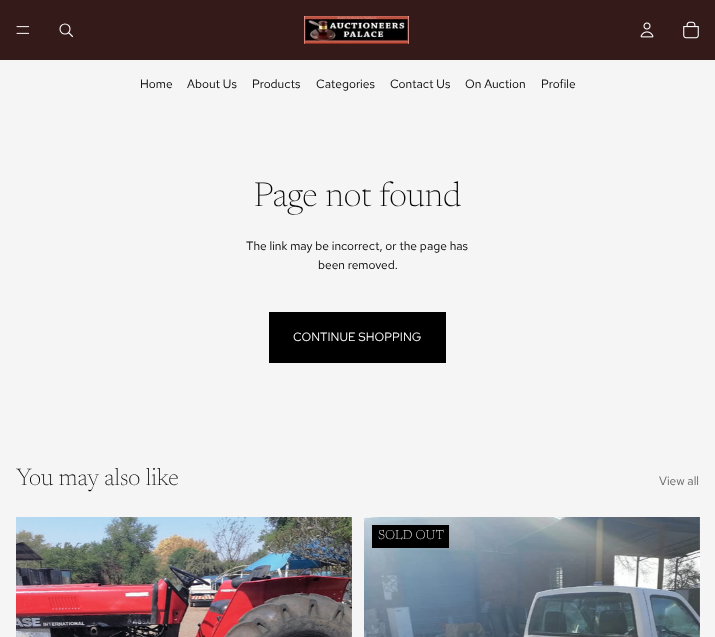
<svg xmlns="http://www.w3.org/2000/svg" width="715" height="637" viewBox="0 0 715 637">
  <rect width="100%" height="100%" fill="rgb(245,245,245)"/>
  <rect x="0" y="0" width="715" height="60" fill="rgb(53,26,26)"/>
  <image x="16" y="26" width="14" height="8" href="pic1.png"/>
  <circle cx="65" cy="29" r="5" fill="none" stroke="rgb(255,255,255)" stroke-width="1.1"/>
  <path d="M69 33L72.5 36.5" fill="none" stroke="rgb(255,255,255)" stroke-width="1.1" stroke-linecap="round" stroke-linejoin="round"/>
  <image x="304" y="16" width="105" height="28" href="pic2.png"/>
  <image x="640" y="22" width="14" height="16" href="pic3.png"/>
  <image x="683" y="21" width="16" height="18" href="pic4.png"/>
  <g font-family="Red Hat Text" font-size="12" fill="rgb(0,0,0)">
    <text x="140" y="88">Home</text>
    <text x="187" y="88">About Us</text>
    <text x="252" y="88">Products</text>
    <text x="316" y="88">Categories</text>
    <text x="390" y="88">Contact Us</text>
    <text x="465" y="88">On Auction</text>
    <text x="541" y="88">Profile</text>
  </g>
  <text x="254" y="206" font-family="Newsreader" font-size="34.25" font-weight="200" fill="rgb(0,0,0)">Page not found</text>
  <g font-family="Red Hat Text" font-size="12" fill="rgb(0,0,0)">
    <text x="246" y="250">The link may be incorrect, or the page has</text>
    <text x="318" y="269">been removed.</text>
  </g>
  <rect x="269" y="312" width="177" height="51" fill="rgb(0,0,0)"/>
  <text x="293" y="341" font-family="Red Hat Text" font-size="12" fill="rgb(255,255,255)">CONTINUE SHOPPING</text>
  <text x="16" y="485" font-family="'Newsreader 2'" font-size="24" font-weight="200" fill="rgb(0,0,0)">You may also like</text>
  <text x="659" y="485" font-family="Red Hat Text" font-size="12" fill="rgb(102,102,102)">View all</text>
  <image x="16" y="517" width="336" height="120" href="pic5.png"/>
  <image x="364" y="517" width="336" height="120" href="pic6.png"/>
  <rect x="372" y="525" width="77" height="23" fill="rgb(0,0,0)"/>
  <text x="378" y="539" font-family="'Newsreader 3'" font-size="13" font-weight="200" fill="rgb(255,255,255)">SOLD OUT</text>
</svg>
